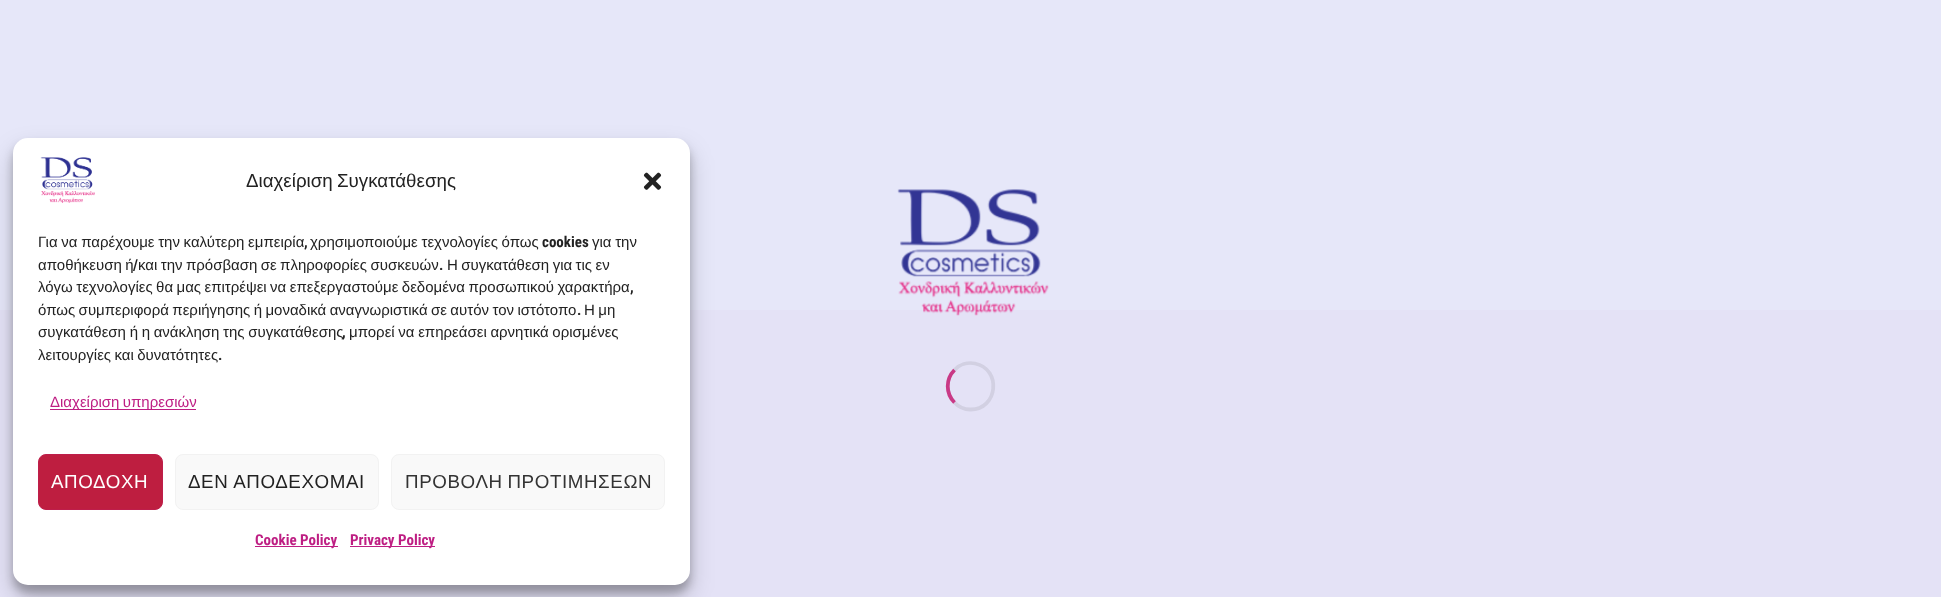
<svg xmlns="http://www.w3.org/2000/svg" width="1941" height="597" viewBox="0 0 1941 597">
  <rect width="100%" height="100%" fill="rgb(230,231,249)"/>
  <rect x="0" y="310" width="324" height="287" fill="rgb(228,226,246)"/>
  <rect x="324" y="585" width="324" height="12" fill="rgb(228,226,246)"/>
  <rect x="648" y="310" width="1293" height="287" fill="rgb(228,226,246)"/>
  <rect x="13" y="145" width="677" height="448" rx="15" fill="rgba(0,0,0,0.23)" filter="blur(4px)"/>
  <rect x="13" y="150" width="677" height="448" rx="15" fill="rgba(0,0,0,0.19)" filter="blur(12.5px)"/>
  <rect x="13" y="138" width="677" height="447" rx="15" fill="rgb(255,255,255)"/>
  <image x="40" y="157" width="55" height="46" href="pic1.png"/>
  <text x="246" y="187" word-spacing="-1" font-family="Liberation Sans" font-size="18.75" fill="rgb(34,34,34)">Διαχείριση Συγκατάθεσης</text>
  <image x="643" y="172" width="19" height="18" href="pic2.png"/>
  <text x="38" y="247" word-spacing="-0.5" font-family="Liberation Sans" font-size="15" fill="rgb(34,34,34)">Για να παρέχουμε την καλύτερη εμπειρία</text>
  <text x="304" y="247" font-family="Roboto Condensed" font-size="15" font-weight="bold" fill="rgb(34,34,34)">,</text>
  <text x="310" y="247" word-spacing="-0.5" font-family="Liberation Sans" font-size="15" fill="rgb(34,34,34)">χρησιμοποιούμε τεχνολογίες όπως</text>
  <text x="542" y="247" font-family="Roboto Condensed" font-size="15" font-weight="bold" fill="rgb(34,34,34)">cookies</text>
  <g font-family="Liberation Sans" font-size="15" fill="rgb(34,34,34)">
    <text x="592" y="247" word-spacing="-0.5">για την</text>
    <text x="38" y="270" word-spacing="-0.75">αποθήκευση ή</text>
  </g>
  <text x="133" y="270" font-family="Roboto Condensed" font-size="15" font-weight="bold" fill="rgb(34,34,34)">/</text>
  <text x="138" y="270" word-spacing="-0.75" font-family="Liberation Sans" font-size="15" fill="rgb(34,34,34)">και την πρόσβαση σε πληροφορίες συσκευών</text>
  <text x="439" y="270" font-family="Roboto Condensed" font-size="15" font-weight="bold" fill="rgb(34,34,34)">.</text>
  <g font-family="Liberation Sans" font-size="15" fill="rgb(34,34,34)">
    <text x="447" y="270" word-spacing="-0.75">Η συγκατάθεση για τις εν</text>
    <text x="38" y="292" word-spacing="-0.75">λόγω τεχνολογίες θα μας επιτρέψει να επεξεργαστούμε δεδομένα προσωπικού χαρακτήρα</text>
  </g>
  <text x="630" y="292" font-family="Roboto Condensed" font-size="15" font-weight="bold" fill="rgb(34,34,34)">,</text>
  <text x="38" y="315" word-spacing="-0.75" font-family="Liberation Sans" font-size="15" fill="rgb(34,34,34)">όπως συμπεριφορά περιήγησης ή μοναδικά αναγνωριστικά σε αυτόν τον ιστότοπο</text>
  <text x="577" y="315" font-family="Roboto Condensed" font-size="15" font-weight="bold" fill="rgb(34,34,34)">.</text>
  <g font-family="Liberation Sans" font-size="15" fill="rgb(34,34,34)">
    <text x="584" y="315" word-spacing="-0.75">Η μη</text>
    <text x="38" y="337" word-spacing="-0.5">συγκατάθεση ή η ανάκληση της συγκατάθεσης</text>
  </g>
  <text x="342" y="337" font-family="Roboto Condensed" font-size="15" font-weight="bold" fill="rgb(34,34,34)">,</text>
  <g font-family="Liberation Sans" font-size="15" fill="rgb(34,34,34)">
    <text x="349" y="337" word-spacing="-0.5">μπορεί να επηρεάσει αρνητικά ορισμένες</text>
    <text x="38" y="360" word-spacing="-0.75">λειτουργίες και δυνατότητες</text>
  </g>
  <text x="218" y="360" font-family="Roboto Condensed" font-size="15" font-weight="bold" fill="rgb(34,34,34)">.</text>
  <rect x="50" y="409" width="146" height="1" fill="rgb(190,30,131)"/>
  <text x="50" y="407" word-spacing="-0.75" font-family="Liberation Sans" font-size="15" fill="rgb(190,30,131)">Διαχείριση υπηρεσιών</text>
  <rect x="38.5" y="454.5" width="124" height="55" rx="7.5" fill="rgb(190,30,64)" stroke="rgb(190,30,75)"/>
  <text x="51" y="488" font-family="Liberation Sans" font-size="18.75" letter-spacing="0.6" fill="rgb(255,255,255)">ΑΠΟΔΟΧΗ</text>
  <rect x="175.5" y="454.5" width="203" height="55" rx="7.5" fill="rgb(249,249,249)" stroke="rgb(242,242,242)"/>
  <text x="188" y="488" font-family="Liberation Sans" font-size="18.75" letter-spacing="0.6" fill="rgb(34,34,34)">ΔΕΝ ΑΠΟΔΕΧΟΜΑΙ</text>
  <rect x="391.5" y="454.5" width="273" height="55" rx="7.5" fill="rgb(249,249,249)" stroke="rgb(242,242,242)"/>
  <text x="405" y="488" word-spacing="-1" font-family="Liberation Sans" font-size="18.75" letter-spacing="0.6" fill="rgb(51,51,51)">ΠΡΟΒΟΛΗ ΠΡΟΤΙΜΗΣΕΩΝ</text>
  <rect x="255" y="546" width="83" height="1" fill="rgb(190,30,131)"/>
  <text x="255" y="545" font-family="Roboto Condensed" font-size="15" font-weight="bold" fill="rgb(190,30,131)">Cookie Policy</text>
  <rect x="350" y="546" width="85" height="1" fill="rgb(190,30,131)"/>
  <text x="350" y="545" font-family="Roboto Condensed" font-size="15" font-weight="bold" fill="rgb(190,30,131)">Privacy Policy</text>
  <image x="897" y="189" width="152" height="127" href="pic3.png"/>
  <path d="M954.5 370C959.5 364.5 967.5 362 975 363.5C1002 369 998 409.5 970.5 409.5C964.5 409.5 958.5 407 954.5 402.5" fill="none" stroke="rgba(0,0,0,0.08)" stroke-width="3.8"/>
  <path d="M954.5 402.5C945.5 393.5 945.5 379 954.5 370" fill="none" stroke="rgba(194,9,102,0.78)" stroke-width="3.8"/>
</svg>
